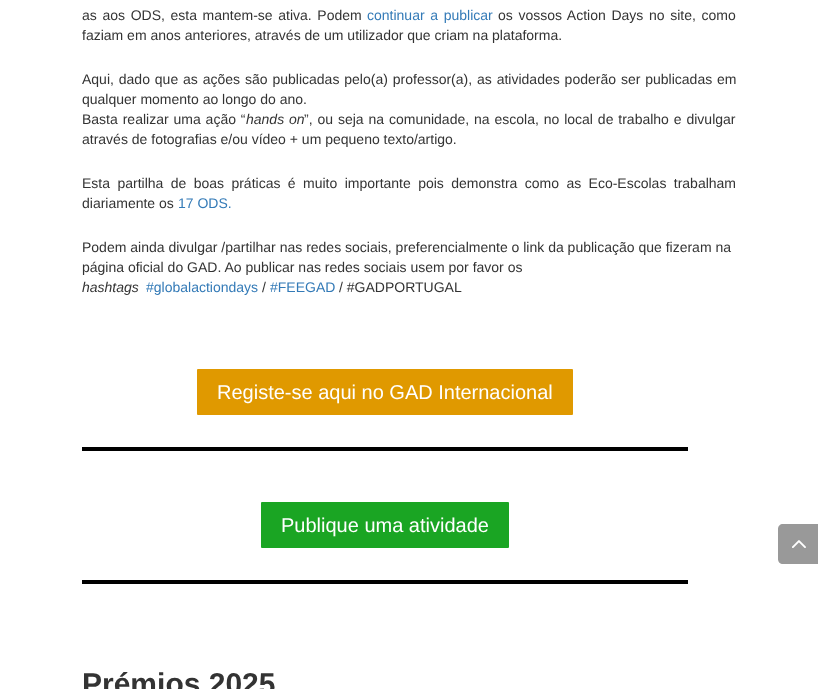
<svg xmlns="http://www.w3.org/2000/svg" width="818" height="689" viewBox="0 0 818 689">
  <rect width="100%" height="100%" fill="rgb(255,255,255)"/>
  <text x="82" y="20" word-spacing="1.75" font-family="Liberation Sans" font-size="14" fill="rgb(51,51,51)">as aos ODS, esta mantem-se ativa. Podem</text>
  <text x="367" y="20" word-spacing="1.75" font-family="Liberation Sans" font-size="14" fill="rgb(51,122,183)">continuar a publicar</text>
  <g font-family="Liberation Sans" font-size="14" fill="rgb(51,51,51)">
    <text x="498" y="20" word-spacing="1.75">os vossos Action Days no site, como</text>
    <text x="82" y="40">faziam em anos anteriores, através de um utilizador que criam na plataforma.</text>
    <text>
      <tspan x="82" y="84" word-spacing="1">Aqui, dado que as ações são publicadas pelo(a) professor(a), as atividades poderão ser publicadas em</tspan>
      <tspan x="82" y="104">qualquer momento ao longo do ano.</tspan>
      <tspan x="82" y="124" word-spacing="1">Basta realizar uma ação “</tspan>
    </text>
  </g>
  <text x="246" y="124" word-spacing="1" font-family="Liberation Sans" font-size="14" font-style="italic" fill="rgb(51,51,51)">hands on</text>
  <g font-family="Liberation Sans" font-size="14" fill="rgb(51,51,51)">
    <text x="304" y="124" word-spacing="1">”, ou seja na comunidade, na escola, no local de trabalho e divulgar</text>
    <text x="82" y="144">através de fotografias e/ou vídeo + um pequeno texto/artigo.</text>
    <text>
      <tspan x="82" y="188" word-spacing="3.5">Esta partilha de boas práticas é muito importante pois demonstra como as Eco-Escolas trabalham</tspan>
      <tspan x="82" y="208">diariamente os</tspan>
    </text>
  </g>
  <text x="178" y="208" font-family="Liberation Sans" font-size="14" fill="rgb(51,122,183)">17 ODS.</text>
  <g font-family="Liberation Sans" font-size="14" fill="rgb(51,51,51)">
    <text>
      <tspan x="82" y="252">Podem ainda divulgar /partilhar nas redes sociais, preferencialmente o link da publicação que fizeram na</tspan>
      <tspan x="82" y="272">página oficial do GAD. Ao publicar nas redes sociais usem por favor os</tspan>
    </text>
  </g>
  <text x="82" y="292" font-family="Liberation Sans" font-size="14" font-style="italic" fill="rgb(51,51,51)">hashtags</text>
  <text x="146" y="292" font-family="Liberation Sans" font-size="14" fill="rgb(51,122,183)">#globalactiondays</text>
  <text x="262" y="292" font-family="Liberation Sans" font-size="14" fill="rgb(51,51,51)">/</text>
  <text x="270" y="292" font-family="Liberation Sans" font-size="14" fill="rgb(51,122,183)">#FEEGAD</text>
  <text x="339" y="292" font-family="Liberation Sans" font-size="14" fill="rgb(51,51,51)">/ #GADPORTUGAL</text>
  <rect x="196" y="368" width="378" height="48" rx="2" fill="rgb(224,153,0)" stroke="rgb(255,255,255)" stroke-width="2"/>
  <text x="217" y="399" font-family="Liberation Sans" font-size="20" fill="rgb(255,255,255)">Registe-se aqui no GAD Internacional</text>
  <rect x="82" y="447" width="606" height="4" fill="rgb(0,0,0)"/>
  <rect x="260" y="501" width="250" height="48" rx="2" fill="rgb(26,165,35)" stroke="rgb(255,255,255)" stroke-width="2"/>
  <text x="281" y="532" font-family="Liberation Sans" font-size="20" fill="rgb(255,255,255)">Publique uma atividade</text>
  <rect x="82" y="580" width="606" height="4" fill="rgb(0,0,0)"/>
  <text x="82" y="694" font-family="Liberation Sans" font-size="30" font-weight="bold" fill="rgb(51,51,51)">Prémios 2025</text>
  <path d="M783 524H818V564H783C780 564 778 562 778 559V529C778 526 780 524 783 524Z" fill="rgb(153,153,153)"/>
  <image x="792" y="540" width="14" height="8" href="pic1.png"/>
</svg>
